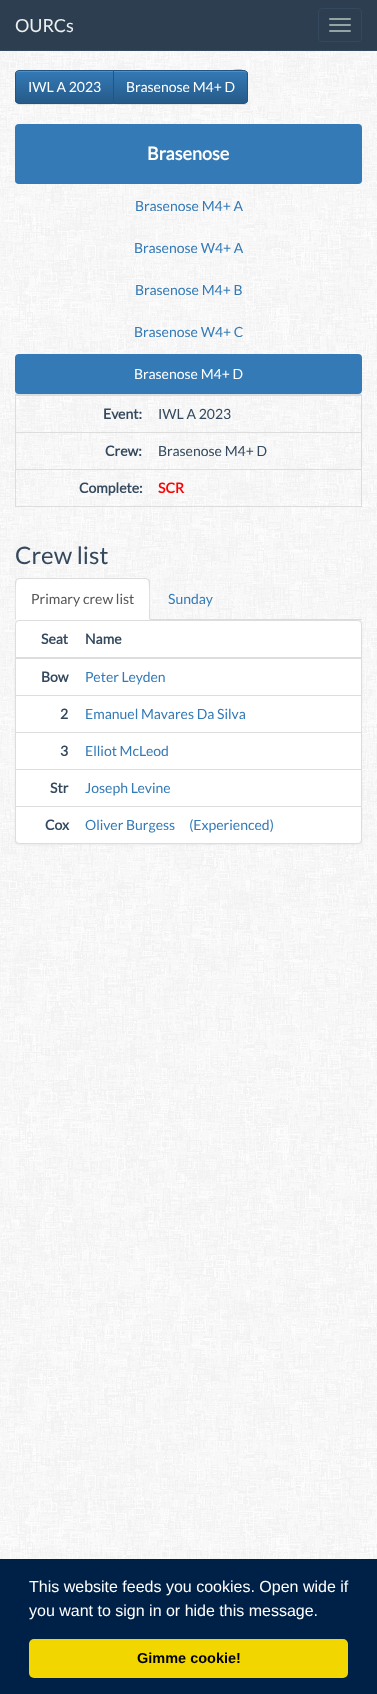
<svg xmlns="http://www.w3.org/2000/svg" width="377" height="1694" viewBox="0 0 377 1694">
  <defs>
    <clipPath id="clip1"><path d="M19 70H114V104H19C17 104 15 102 15 100V74C15 72 17 70 19 70Z"/></clipPath>
    <linearGradient id="g1" gradientUnits="userSpaceOnUse" x1="65" y1="71" x2="65" y2="103"><stop offset="0" stop-color="rgb(51,122,183)"/><stop offset="1" stop-color="rgb(38,90,136)"/></linearGradient>
    <clipPath id="clip2"><path d="M113 70H244C246 70 248 72 248 74V100C248 102 246 104 244 104H113Z"/></clipPath>
    <linearGradient id="g2" gradientUnits="userSpaceOnUse" x1="181" y1="71" x2="181" y2="103"><stop offset="0" stop-color="rgb(51,122,183)"/><stop offset="1" stop-color="rgb(38,90,136)"/></linearGradient>
  </defs>
  <rect width="100%" height="100%" fill="rgb(255,255,255)"/>
  <image x="0" y="51" width="377" height="1508" href="pic1.png"/>
  <rect x="0" y="0" width="377" height="50" fill="rgb(44,62,80)"/>
  <rect x="0" y="50" width="377" height="1" fill="rgb(52,73,94)"/>
  <text x="15" y="32" font-family="Lato" font-size="18" fill="rgb(236,240,241)">OURCs</text>
  <rect x="318.5" y="8.5" width="43" height="33" rx="3.5" fill="none" stroke="rgb(52,73,94)"/>
  <rect x="329" y="18" width="22" height="2" rx="1" fill="rgb(149,165,166)"/>
  <rect x="329" y="24" width="22" height="2" rx="1" fill="rgb(149,165,166)"/>
  <rect x="329" y="30" width="22" height="2" rx="1" fill="rgb(149,165,166)"/>
  <rect x="15" y="71" width="99" height="34" rx="4" fill="rgba(0,0,0,0.07)" filter="blur(0.5px)"/>
  <g clip-path="url(#clip1)">
    <rect x="15" y="71" width="98" height="32" fill="url(#g1)"/>
  </g>
  <path d="M19 72H113V71H19C17 71 16 72 16 74V75C16 73 17 72 19 72Z" fill="rgb(82,142,193)"/>
  <path d="M19 70.5H113.5V103.5H19C17 103.5 15.5 102 15.5 100V74C15.5 72 17 70.5 19 70.5Z" fill="none" stroke="rgb(36,85,128)"/>
  <text x="28" y="92" font-family="Lato" font-size="14" fill="rgb(255,255,255)">IWL A 2023</text>
  <rect x="113" y="71" width="135" height="34" rx="4" fill="rgba(0,0,0,0.07)" filter="blur(0.5px)"/>
  <g clip-path="url(#clip2)">
    <rect x="114" y="71" width="134" height="32" fill="url(#g2)"/>
  </g>
  <path d="M114 72H244C246 72 247 73 247 75C247 66 231 71 222 71H114Z" fill="rgb(82,142,193)"/>
  <path d="M113.5 70.5H244C246 70.5 247.5 72 247.5 74V100C247.5 102 246 103.5 244 103.5H113.5Z" fill="none" stroke="rgb(36,85,128)"/>
  <text x="126" y="92" font-family="Lato" font-size="14" fill="rgb(255,255,255)">Brasenose M4+ D</text>
  <rect x="15" y="124" width="347" height="60" rx="4" fill="rgb(51,122,183)"/>
  <text x="147" y="160" font-family="Lato" font-size="18" font-weight="bold" fill="rgb(255,255,255)">Brasenose</text>
  <g font-family="Lato" font-size="14" fill="rgb(51,122,183)">
    <text x="135" y="211">Brasenose M4+ A</text>
    <text x="134" y="253">Brasenose W4+ A</text>
    <text x="135" y="295">Brasenose M4+ B</text>
    <text x="134" y="337">Brasenose W4+ C</text>
  </g>
  <rect x="15" y="354" width="347" height="40" rx="4" fill="rgb(51,122,183)"/>
  <text x="134" y="379" font-family="Lato" font-size="14" fill="rgb(255,255,255)">Brasenose M4+ D</text>
  <rect x="15.5" y="394.5" width="346" height="112" fill="none" stroke="rgb(221,221,221)"/>
  <text x="103" y="419" font-family="Lato" font-size="14" font-weight="bold" fill="rgb(52,73,94)">Event:</text>
  <rect x="16" y="395" width="345" height="1" fill="rgb(221,221,221)"/>
  <text x="158" y="419" font-family="Lato" font-size="14" fill="rgb(52,73,94)">IWL A 2023</text>
  <text x="105" y="456" font-family="Lato" font-size="14" font-weight="bold" fill="rgb(52,73,94)">Crew:</text>
  <rect x="16" y="432" width="345" height="1" fill="rgb(221,221,221)"/>
  <text x="158" y="456" font-family="Lato" font-size="14" fill="rgb(52,73,94)">Brasenose M4+ D</text>
  <text x="79" y="493" font-family="Lato" font-size="14" font-weight="bold" fill="rgb(52,73,94)">Complete:</text>
  <rect x="16" y="469" width="345" height="1" fill="rgb(221,221,221)"/>
  <text x="158" y="493" font-family="Lato" font-size="14" font-weight="bold" fill="rgb(255,0,0)">SCR</text>
  <text x="15" y="564" font-family="Lato" font-size="24" fill="rgb(52,73,94)">Crew list</text>
  <rect x="150" y="619" width="212" height="1" fill="rgb(221,221,221)"/>
  <rect x="15" y="621" width="347" height="224" rx="4" fill="rgba(0,0,0,0.05)" filter="blur(1px)"/>
  <path d="M19 578H146C148 578 150 580 150 582V620H15V582C15 580 17 578 19 578Z" fill="rgb(255,255,255)"/>
  <path d="M19 578L16 579L17 580L19 579H146L148 580L149 579L146 578Z" fill="rgb(221,221,221)"/>
  <path d="M150 620V582C150 581 150 580 149 579L148 580C150 582 149 614 149 619Z" fill="rgb(221,221,221)"/>
  <path d="M15 620L16 619C16 614 15 582 17 580L16 579L15 582Z" fill="rgb(221,221,221)"/>
  <text x="31" y="604" font-family="Lato" font-size="14" fill="rgb(85,85,85)">Primary crew list</text>
  <text x="168" y="604" font-family="Lato" font-size="14" fill="rgb(51,122,183)">Sunday</text>
  <rect x="15.5" y="620.5" width="346" height="223" rx="3.5" fill="rgb(255,255,255)" stroke="rgb(221,221,221)"/>
  <text x="41" y="644" font-family="Lato" font-size="14" font-weight="bold" fill="rgb(52,73,94)">Seat</text>
  <rect x="15" y="657" width="347" height="2" fill="rgb(221,221,221)"/>
  <g font-family="Lato" font-size="14" font-weight="bold" fill="rgb(52,73,94)">
    <text x="85" y="644">Name</text>
    <text x="41" y="682">Bow</text>
  </g>
  <text x="85" y="682" font-family="Lato" font-size="14" fill="rgb(51,122,183)">Peter Leyden</text>
  <text x="60" y="719" font-family="Lato" font-size="14" font-weight="bold" fill="rgb(52,73,94)">2</text>
  <rect x="16" y="695" width="346" height="1" fill="rgb(221,221,221)"/>
  <text x="85" y="719" font-family="Lato" font-size="14" fill="rgb(51,122,183)">Emanuel Mavares Da Silva</text>
  <text x="60" y="756" font-family="Lato" font-size="14" font-weight="bold" fill="rgb(52,73,94)">3</text>
  <rect x="16" y="732" width="346" height="1" fill="rgb(221,221,221)"/>
  <text x="85" y="756" font-family="Lato" font-size="14" fill="rgb(51,122,183)">Elliot McLeod</text>
  <text x="50" y="793" font-family="Lato" font-size="14" font-weight="bold" fill="rgb(52,73,94)">Str</text>
  <rect x="16" y="769" width="346" height="1" fill="rgb(221,221,221)"/>
  <text x="85" y="793" font-family="Lato" font-size="14" fill="rgb(51,122,183)">Joseph Levine</text>
  <text x="45" y="830" font-family="Lato" font-size="14" font-weight="bold" fill="rgb(52,73,94)">Cox</text>
  <rect x="16" y="806" width="346" height="1" fill="rgb(221,221,221)"/>
  <text x="85" y="830" font-family="Lato" font-size="14" fill="rgb(51,122,183)">Oliver Burgess (Experienced)</text>
  <rect x="0" y="1559" width="377" height="135" fill="rgb(0,33,71)"/>
  <g font-family="Liberation Sans" font-size="16" fill="rgb(255,255,255)">
    <text>
      <tspan x="29" y="1592">This website feeds you cookies. Open wide if</tspan>
      <tspan x="29" y="1616">you want to sign in or hide this message.</tspan>
    </text>
  </g>
  <rect x="29" y="1639" width="319" height="39" rx="5" fill="rgb(241,214,0)"/>
  <text x="137" y="1663" font-family="Liberation Sans" font-size="14.5" font-weight="bold" fill="rgb(0,0,0)">Gimme cookie!</text>
</svg>
